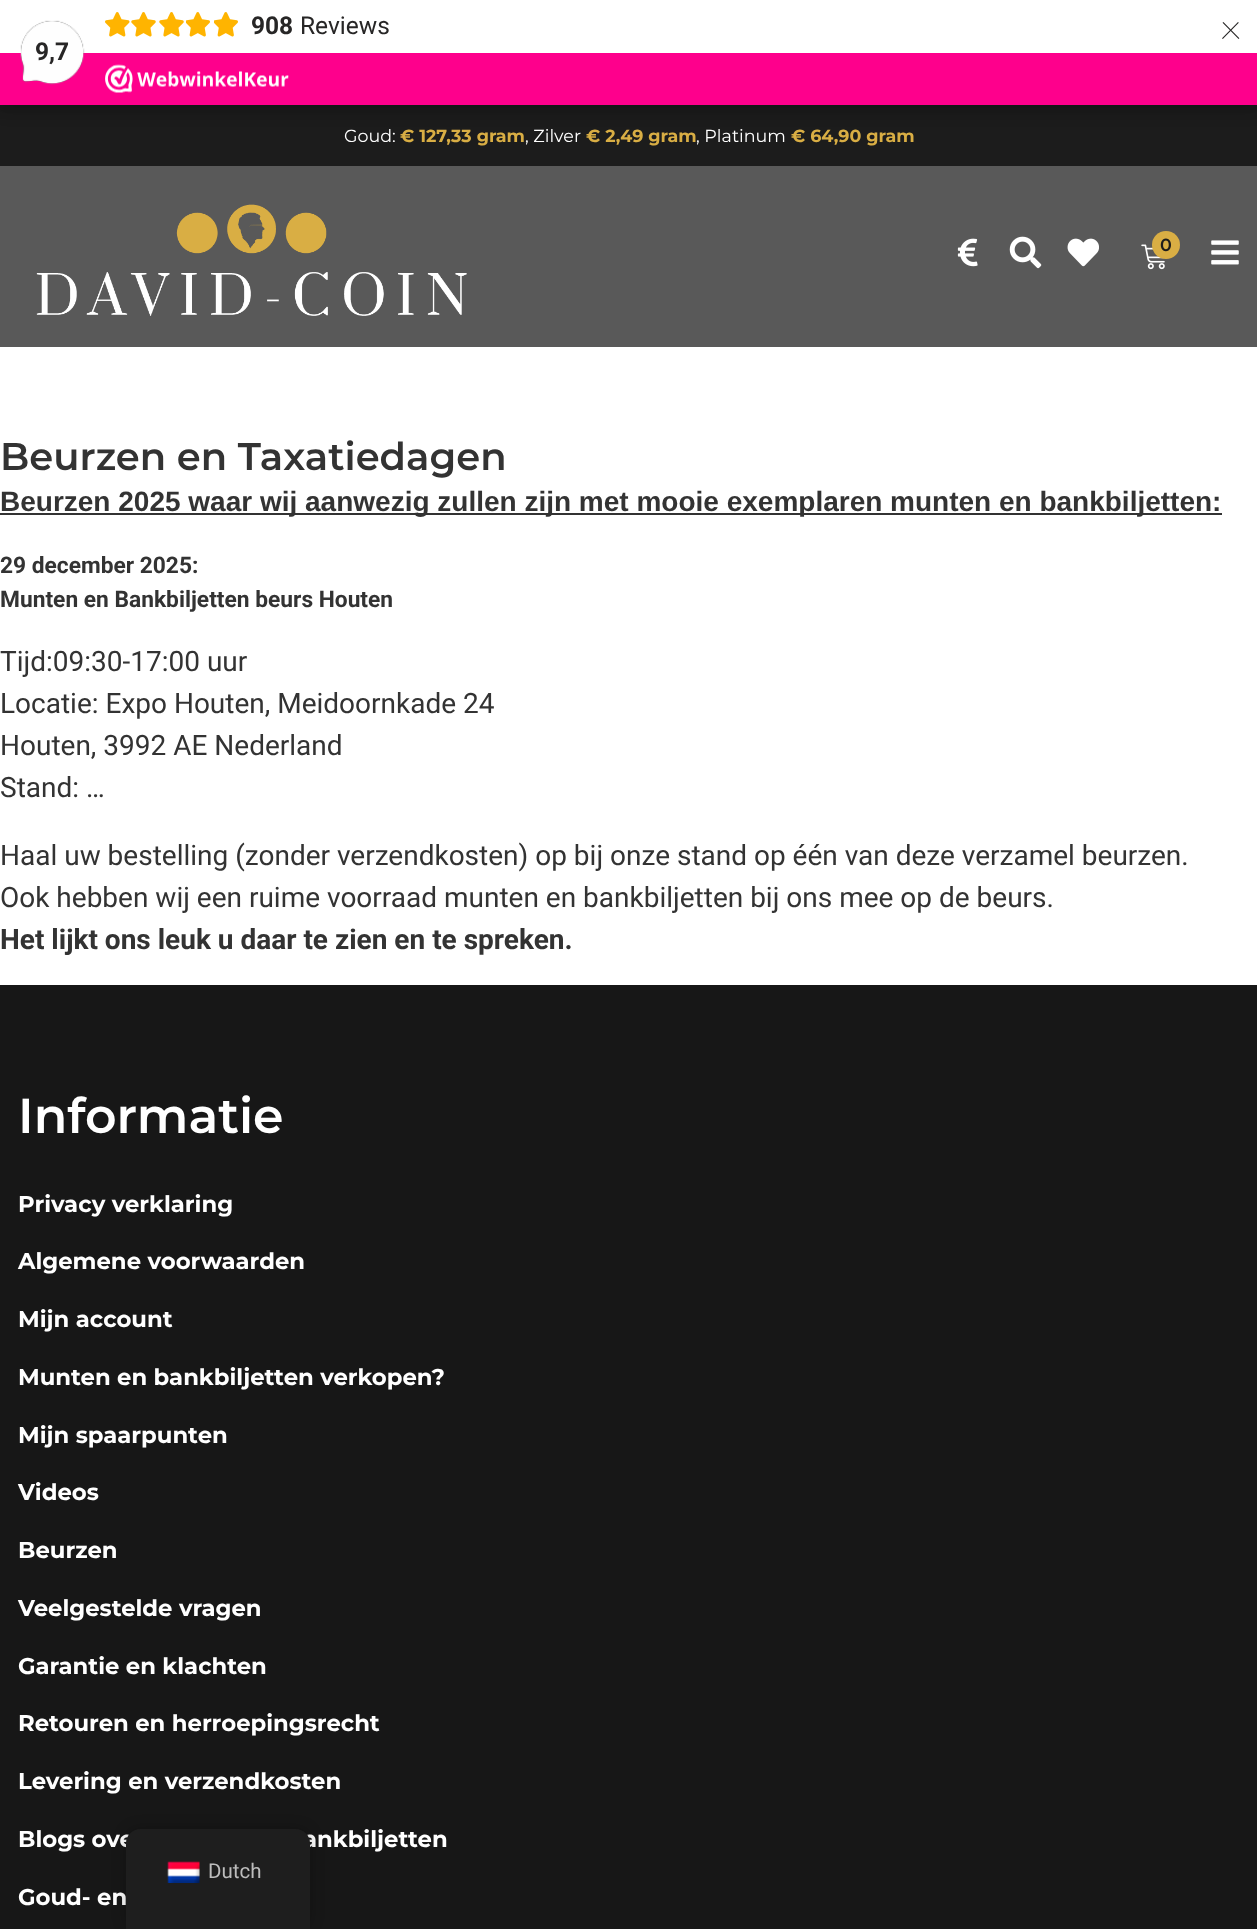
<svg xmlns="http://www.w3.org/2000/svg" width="1257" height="1929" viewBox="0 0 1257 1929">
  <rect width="100%" height="100%" fill="rgb(255,255,255)"/>
  <rect x="0" y="105" width="1257" height="61" fill="rgb(28,28,28)"/>
  <rect x="-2" y="-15" width="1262" height="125" fill="rgba(0,0,0,0.15)" filter="blur(5px)"/>
  <rect x="0" y="4" width="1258" height="105" fill="rgba(0,0,0,0.15)" filter="blur(9px)"/>
  <rect x="0" y="0" width="1257" height="53" fill="rgb(255,255,255)"/>
  <image x="105" y="12" width="25" height="25" href="pic1.png"/>
  <image x="131" y="12" width="25" height="25" href="pic2.png"/>
  <image x="159" y="12" width="25" height="25" href="pic2.png"/>
  <image x="186" y="12" width="24" height="25" href="pic3.png"/>
  <image x="214" y="12" width="24" height="25" href="pic3.png"/>
  <text x="251" y="34" font-family="Roboto" font-size="24.5" font-weight="bold" fill="rgb(39,38,38)">908</text>
  <text x="300" y="34" font-family="Roboto" font-size="24.5" fill="rgb(39,38,38)">Reviews</text>
  <text x="1220" y="39" font-family="Roboto" font-size="42" font-weight="100" fill="rgb(39,38,38)">×</text>
  <rect x="0" y="53" width="1257" height="52" fill="rgb(254,0,140)"/>
  <image x="20" y="20" width="65" height="65" href="pic4.png"/>
  <text x="35" y="60" font-family="Roboto" font-size="24.5" font-weight="bold" fill="rgb(39,38,38)">9,7</text>
  <image x="105" y="64" width="184" height="29" href="pic5.png"/>
  <text x="344" y="142" font-family="Montserrat" font-size="17.5" fill="rgb(255,255,255)">Goud:</text>
  <text x="400" y="142" font-family="Montserrat" font-size="17.5" font-weight="bold" fill="rgb(217,174,68)">€ 127,33 gram</text>
  <text x="525" y="142" font-family="Montserrat" font-size="17.5" fill="rgb(255,255,255)">, Zilver</text>
  <text x="586" y="142" font-family="Montserrat" font-size="17.5" font-weight="bold" fill="rgb(217,174,68)">€ 2,49 gram</text>
  <text x="696" y="142" font-family="Montserrat" font-size="17.5" fill="rgb(255,255,255)">, Platinum</text>
  <text x="791" y="142" font-family="Montserrat" font-size="17.5" font-weight="bold" fill="rgb(217,174,68)">€ 64,90 gram</text>
  <rect x="0" y="166" width="1257" height="181" fill="rgb(89,89,89)"/>
  <image x="36" y="204" width="431" height="112" href="pic6.png"/>
  <image x="957" y="238" width="21" height="29" href="pic7.png"/>
  <image x="1009" y="236" width="33" height="33" href="pic8.png"/>
  <image x="1067" y="238" width="32" height="29" href="pic9.png"/>
  <image x="1141" y="244" width="24" height="26" href="pic10.png"/>
  <circle cx="1166" cy="245" r="14" fill="rgb(217,174,68)"/>
  <text x="1160" y="251" font-family="Montserrat" font-size="17.5" font-weight="600" fill="rgb(28,28,28)">0</text>
  <image x="1211" y="240" width="28" height="25" href="pic11.png"/>
  <text x="0" y="470" font-family="Montserrat" font-size="38.5" font-weight="600" fill="rgb(51,51,51)">Beurzen en Taxatiedagen</text>
  <rect x="0" y="513" width="1222" height="2" fill="rgb(51,51,51)"/>
  <text x="0" y="511" font-family="Liberation Sans" font-size="28" font-weight="bold" fill="rgb(51,51,51)">Beurzen 2025 waar wij aanwezig zullen zijn met mooie exemplaren munten en bankbiljetten:</text>
  <g font-family="Roboto" font-size="22.75" font-weight="bold" fill="rgb(51,51,51)">
    <text>
      <tspan x="0" y="573">29 december 2025:</tspan>
      <tspan x="0" y="607">Munten en Bankbiljetten beurs Houten</tspan>
    </text>
  </g>
  <g font-family="Roboto" font-size="28" fill="rgb(51,51,51)">
    <text>
      <tspan x="0" y="671">Tijd:09:30-17:00 uur</tspan>
      <tspan x="0" y="713">Locatie: Expo Houten, Meidoornkade 24</tspan>
      <tspan x="0" y="755">Houten, 3992 AE Nederland</tspan>
      <tspan x="0" y="797">Stand: …</tspan>
    </text>
    <text>
      <tspan x="0" y="865">Haal uw bestelling (zonder verzendkosten) op bij onze stand op één van deze verzamel beurzen.</tspan>
      <tspan x="0" y="907">Ook hebben wij een ruime voorraad munten en bankbiljetten bij ons mee op de beurs.</tspan>
    </text>
  </g>
  <text x="0" y="949" font-family="Roboto" font-size="28" font-weight="bold" fill="rgb(51,51,51)">Het lijkt ons leuk u daar te zien en te spreken.</text>
  <rect x="0" y="985" width="1257" height="944" fill="rgb(23,23,23)"/>
  <text x="18" y="1133" font-family="Montserrat" font-size="49" font-weight="600" fill="rgb(255,255,255)">Informatie</text>
  <g font-family="Montserrat" font-size="22.75" font-weight="bold" fill="rgb(255,255,255)">
    <text x="18" y="1212">Privacy verklaring</text>
    <text x="18" y="1269">Algemene voorwaarden</text>
    <text x="18" y="1327">Mijn account</text>
    <text x="18" y="1385">Munten en bankbiljetten verkopen?</text>
    <text x="18" y="1443">Mijn spaarpunten</text>
    <text x="18" y="1500">Videos</text>
    <text x="18" y="1558">Beurzen</text>
    <text x="18" y="1616">Veelgestelde vragen</text>
    <text x="18" y="1674">Garantie en klachten</text>
    <text x="18" y="1731">Retouren en herroepingsrecht</text>
    <text x="18" y="1789">Levering en verzendkosten</text>
    <text x="18" y="1847">Blogs ove</text>
    <text x="303" y="1847">ankbiljetten</text>
    <text x="18" y="1905">Goud- en</text>
  </g>
  <rect x="126" y="1829" width="184" height="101" rx="14" fill="rgba(0,0,0,0.25)" filter="blur(7px)"/>
  <path d="M140 1829H296C303.5 1829 310 1835.5 310 1843V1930H126V1843C126 1835.5 132.5 1829 140 1829Z" fill="rgb(30,30,30)"/>
  <image x="167" y="1861" width="33" height="22" href="pic12.png"/>
  <text x="208" y="1878" font-family="Roboto" font-size="20.5" fill="rgb(189,189,189)">Dutch</text>
</svg>
